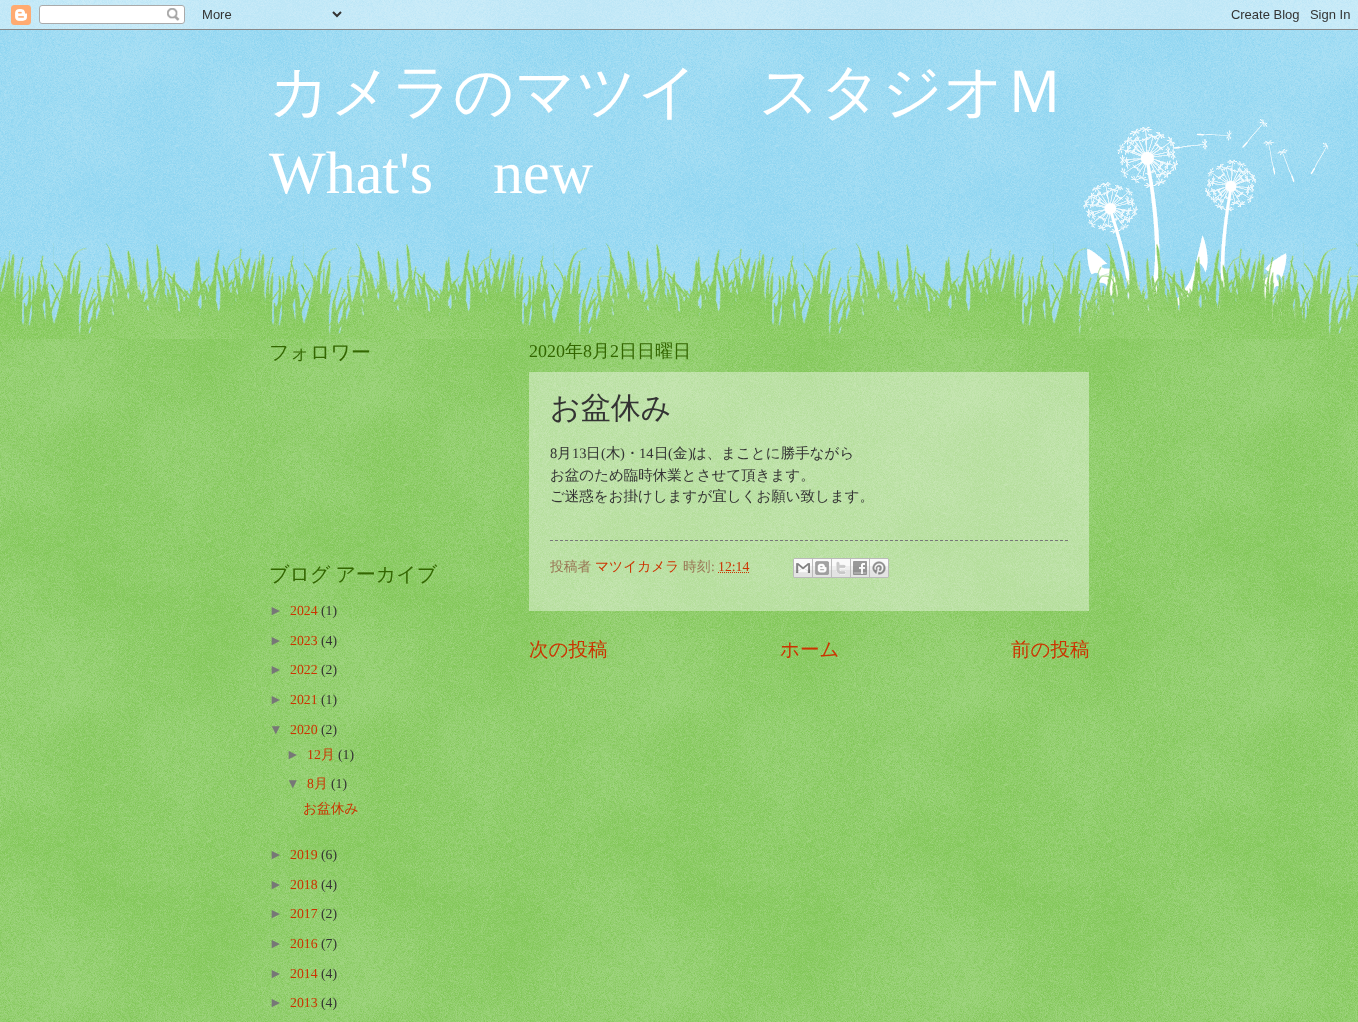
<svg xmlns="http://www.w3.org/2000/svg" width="1358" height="1022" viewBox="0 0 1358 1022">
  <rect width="100%" height="100%" fill="rgb(119,204,238)"/>
  <image x="0" y="0" width="1358" height="334" href="pic1.png"/>
  <image x="0" y="0" width="1358" height="30" href="pic2.png"/>
  <text x="269" y="112" font-family="WenQuanYi Zen Hei" font-size="60" font-weight="500" fill="rgb(255,255,255)">カメラのマツイ　スタジオＭ</text>
  <g font-family="Liberation Serif" font-size="60" fill="rgb(255,255,255)">
    <text x="269" y="193">What's</text>
    <text x="493" y="193">new</text>
  </g>
  <rect x="0" y="339" width="1358" height="683" fill="rgb(102,187,51)"/>
  <image x="0" y="339" width="1358" height="683" href="pic3.png"/>
  <image x="1078" y="119" width="250" height="215" href="pic4.png"/>
  <image x="0" y="243" width="1358" height="96" href="pic5.png"/>
  <g font-family="WenQuanYi Zen Hei" font-size="20" font-weight="500" fill="rgb(51,102,0)">
    <text x="269" y="359">フォロワー</text>
    <text x="269" y="581" word-spacing="-1">ブログ アーカイブ</text>
  </g>
  <text x="269" y="615" font-family="Liberation Sans" font-size="13.75" fill="rgb(119,119,119)">►</text>
  <text x="290" y="615" font-family="Liberation Serif" font-size="13.75" fill="rgb(204,51,0)">2024</text>
  <text x="321" y="615" font-family="Liberation Serif" font-size="13.75" fill="rgb(51,51,51)">(1)</text>
  <text x="269" y="645" font-family="Liberation Sans" font-size="13.75" fill="rgb(119,119,119)">►</text>
  <text x="290" y="645" font-family="Liberation Serif" font-size="13.75" fill="rgb(204,51,0)">2023</text>
  <text x="321" y="645" font-family="Liberation Serif" font-size="13.75" fill="rgb(51,51,51)">(4)</text>
  <text x="269" y="674" font-family="Liberation Sans" font-size="13.75" fill="rgb(119,119,119)">►</text>
  <text x="290" y="674" font-family="Liberation Serif" font-size="13.75" fill="rgb(204,51,0)">2022</text>
  <text x="321" y="674" font-family="Liberation Serif" font-size="13.75" fill="rgb(51,51,51)">(2)</text>
  <text x="269" y="704" font-family="Liberation Sans" font-size="13.75" fill="rgb(119,119,119)">►</text>
  <text x="290" y="704" font-family="Liberation Serif" font-size="13.75" fill="rgb(204,51,0)">2021</text>
  <text x="321" y="704" font-family="Liberation Serif" font-size="13.75" fill="rgb(51,51,51)">(1)</text>
  <text x="269" y="734" font-family="Liberation Sans" font-size="13.75" fill="rgb(119,119,119)">▼</text>
  <text x="290" y="734" font-family="Liberation Serif" font-size="13.75" fill="rgb(204,51,0)">2020</text>
  <text x="321" y="734" font-family="Liberation Serif" font-size="13.75" fill="rgb(51,51,51)">(2)</text>
  <text x="286" y="759" font-family="Liberation Sans" font-size="13.75" fill="rgb(119,119,119)">►</text>
  <text x="307" y="759" font-family="Liberation Serif" font-size="13.75" fill="rgb(204,51,0)">12</text>
  <text x="321" y="759" font-family="WenQuanYi Zen Hei" font-size="13.75" font-weight="500" fill="rgb(204,51,0)">月</text>
  <text x="338" y="759" font-family="Liberation Serif" font-size="13.75" fill="rgb(51,51,51)">(1)</text>
  <text x="286" y="788" font-family="Liberation Sans" font-size="13.75" fill="rgb(119,119,119)">▼</text>
  <text x="307" y="788" font-family="Liberation Serif" font-size="13.75" fill="rgb(204,51,0)">8</text>
  <text x="314" y="788" font-family="WenQuanYi Zen Hei" font-size="13.75" font-weight="500" fill="rgb(204,51,0)">月</text>
  <text x="331" y="788" font-family="Liberation Serif" font-size="13.75" fill="rgb(51,51,51)">(1)</text>
  <text x="303" y="813" font-family="WenQuanYi Zen Hei" font-size="13.75" font-weight="500" fill="rgb(204,51,0)">お盆休み</text>
  <text x="269" y="859" font-family="Liberation Sans" font-size="13.75" fill="rgb(119,119,119)">►</text>
  <text x="290" y="859" font-family="Liberation Serif" font-size="13.75" fill="rgb(204,51,0)">2019</text>
  <text x="321" y="859" font-family="Liberation Serif" font-size="13.75" fill="rgb(51,51,51)">(6)</text>
  <text x="269" y="889" font-family="Liberation Sans" font-size="13.75" fill="rgb(119,119,119)">►</text>
  <text x="290" y="889" font-family="Liberation Serif" font-size="13.75" fill="rgb(204,51,0)">2018</text>
  <text x="321" y="889" font-family="Liberation Serif" font-size="13.75" fill="rgb(51,51,51)">(4)</text>
  <text x="269" y="918" font-family="Liberation Sans" font-size="13.75" fill="rgb(119,119,119)">►</text>
  <text x="290" y="918" font-family="Liberation Serif" font-size="13.75" fill="rgb(204,51,0)">2017</text>
  <text x="321" y="918" font-family="Liberation Serif" font-size="13.75" fill="rgb(51,51,51)">(2)</text>
  <text x="269" y="948" font-family="Liberation Sans" font-size="13.75" fill="rgb(119,119,119)">►</text>
  <text x="290" y="948" font-family="Liberation Serif" font-size="13.75" fill="rgb(204,51,0)">2016</text>
  <text x="321" y="948" font-family="Liberation Serif" font-size="13.75" fill="rgb(51,51,51)">(7)</text>
  <text x="269" y="978" font-family="Liberation Sans" font-size="13.75" fill="rgb(119,119,119)">►</text>
  <text x="290" y="978" font-family="Liberation Serif" font-size="13.75" fill="rgb(204,51,0)">2014</text>
  <text x="321" y="978" font-family="Liberation Serif" font-size="13.75" fill="rgb(51,51,51)">(4)</text>
  <text x="269" y="1007" font-family="Liberation Sans" font-size="13.75" fill="rgb(119,119,119)">►</text>
  <text x="290" y="1007" font-family="Liberation Serif" font-size="13.75" fill="rgb(204,51,0)">2013</text>
  <text x="321" y="1007" font-family="Liberation Serif" font-size="13.75" fill="rgb(51,51,51)">(4)</text>
  <text x="529" y="357" font-family="Liberation Serif" font-size="18" fill="rgb(51,102,0)">2020</text>
  <text x="565" y="357" font-family="WenQuanYi Zen Hei" font-size="18" font-weight="500" fill="rgb(51,102,0)">年</text>
  <text x="583" y="357" font-family="Liberation Serif" font-size="18" fill="rgb(51,102,0)">8</text>
  <text x="592" y="357" font-family="WenQuanYi Zen Hei" font-size="18" font-weight="500" fill="rgb(51,102,0)">月</text>
  <text x="610" y="357" font-family="Liberation Serif" font-size="18" fill="rgb(51,102,0)">2</text>
  <text x="619" y="357" font-family="WenQuanYi Zen Hei" font-size="18" font-weight="500" fill="rgb(51,102,0)">日日曜日</text>
  <rect x="529" y="372" width="560" height="239" fill="rgba(255,255,255,0.4)"/>
  <text x="550" y="418" font-family="WenQuanYi Zen Hei" font-size="30" font-weight="500" fill="rgb(51,51,51)">お盆休み</text>
  <text x="550" y="458" font-family="Liberation Serif" font-size="14.5" fill="rgb(51,51,51)">8</text>
  <text x="557" y="458" font-family="WenQuanYi Zen Hei" font-size="14.5" font-weight="500" fill="rgb(51,51,51)">月</text>
  <text x="572" y="458" font-family="Liberation Serif" font-size="14.5" fill="rgb(51,51,51)">13</text>
  <text x="586" y="458" font-family="WenQuanYi Zen Hei" font-size="14.5" font-weight="500" fill="rgb(51,51,51)">日</text>
  <text x="601" y="458" font-family="Liberation Serif" font-size="14.5" fill="rgb(51,51,51)">(</text>
  <text x="606" y="458" font-family="WenQuanYi Zen Hei" font-size="14.5" font-weight="500" fill="rgb(51,51,51)">木</text>
  <text x="620" y="458" font-family="Liberation Serif" font-size="14.5" fill="rgb(51,51,51)">)</text>
  <text x="625" y="458" font-family="WenQuanYi Zen Hei" font-size="14.5" font-weight="500" fill="rgb(51,51,51)">・</text>
  <text x="639" y="458" font-family="Liberation Serif" font-size="14.5" fill="rgb(51,51,51)">14</text>
  <text x="654" y="458" font-family="WenQuanYi Zen Hei" font-size="14.5" font-weight="500" fill="rgb(51,51,51)">日</text>
  <text x="668" y="458" font-family="Liberation Serif" font-size="14.5" fill="rgb(51,51,51)">(</text>
  <text x="673" y="458" font-family="WenQuanYi Zen Hei" font-size="14.5" font-weight="500" fill="rgb(51,51,51)">金</text>
  <text x="688" y="458" font-family="Liberation Serif" font-size="14.5" fill="rgb(51,51,51)">)</text>
  <g font-family="WenQuanYi Zen Hei" font-size="14.5" font-weight="500" fill="rgb(51,51,51)">
    <text x="692" y="458">は、まことに勝手ながら</text>
    <text>
      <tspan x="550" y="480">お盆のため臨時休業とさせて頂きます。</tspan>
      <tspan x="550" y="501">ご迷惑をお掛けしますが宜しくお願い致します。</tspan>
    </text>
  </g>
  <path d="M550 540.5H1068" fill="none" stroke="rgb(119,119,119)" stroke-dasharray="3 2"/>
  <text x="550" y="571" font-family="WenQuanYi Zen Hei" font-size="13.75" font-weight="500" fill="rgb(153,119,85)">投稿者</text>
  <text x="595" y="571" font-family="WenQuanYi Zen Hei" font-size="13.75" font-weight="500" fill="rgb(204,51,0)">マツイカメラ</text>
  <text x="683" y="571" font-family="WenQuanYi Zen Hei" font-size="13.75" font-weight="500" fill="rgb(153,119,85)">時刻</text>
  <text x="711" y="571" font-family="Liberation Serif" font-size="13.75" fill="rgb(153,119,85)">:</text>
  <text x="718" y="571" font-family="Liberation Serif" font-size="13.75" fill="rgb(204,51,0)">12:14</text>
  <path d="M718 572.5H749.5" fill="none" stroke="rgb(204,51,0)" stroke-dasharray="1 1"/>
  <image x="793" y="558" width="20" height="20" href="pic6.png"/>
  <image x="813" y="558" width="19" height="20" href="pic7.png"/>
  <image x="832" y="558" width="19" height="20" href="pic8.png"/>
  <image x="851" y="558" width="19" height="20" href="pic9.png"/>
  <image x="870" y="558" width="19" height="20" href="pic10.png"/>
  <g font-family="WenQuanYi Zen Hei" font-size="19.5" font-weight="500" fill="rgb(204,51,0)">
    <text x="529" y="656">次の投稿</text>
    <text x="780" y="656">ホーム</text>
    <text x="1011" y="656">前の投稿</text>
  </g>
</svg>
